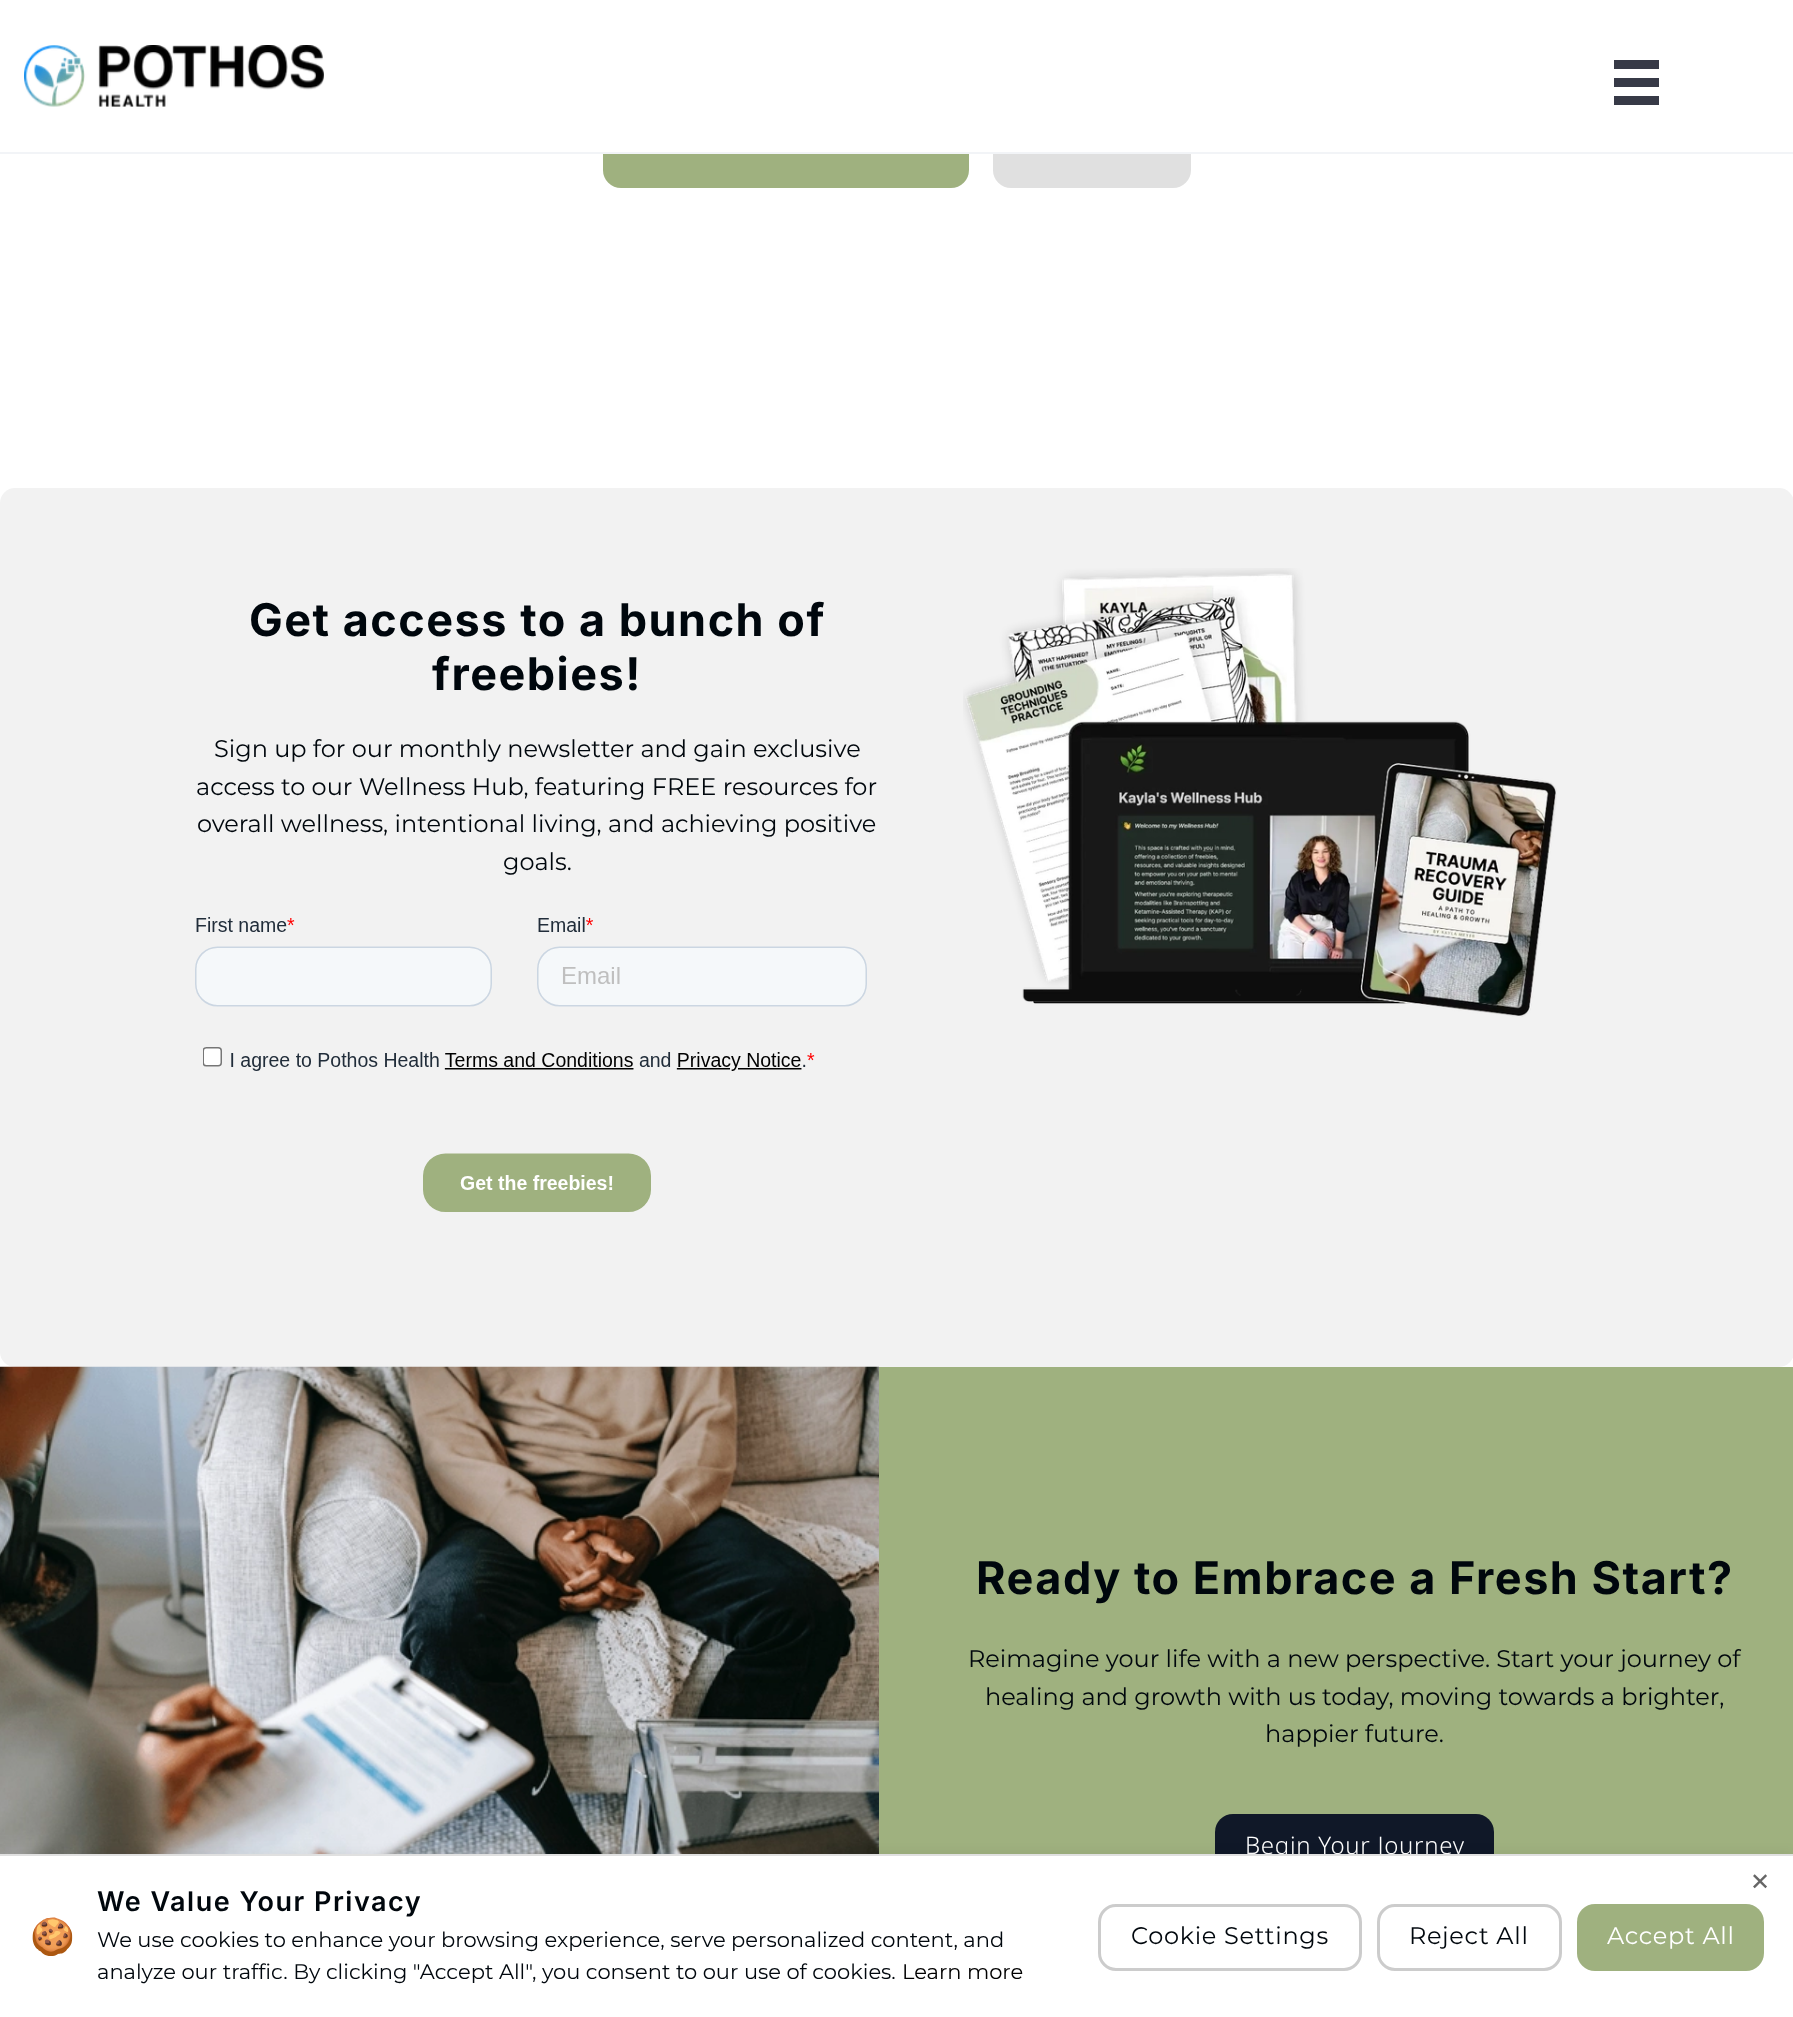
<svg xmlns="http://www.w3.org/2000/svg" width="1793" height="2017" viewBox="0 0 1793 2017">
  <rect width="100%" height="100%" fill="rgb(255,255,255)"/>
  <rect x="603" y="123" width="366" height="65" rx="18" fill="rgb(159,177,127)"/>
  <rect x="993" y="123" width="198" height="65" rx="18" fill="rgb(224,224,224)"/>
  <rect x="603" y="123" width="588" height="29" fill="rgb(255,255,255)"/>
  <rect x="0" y="152" width="1793" height="2" fill="rgb(242,244,247)"/>
  <image x="24" y="45" width="300" height="62" href="pic1.png"/>
  <rect x="1614" y="60" width="45" height="9" fill="rgb(55,58,71)"/>
  <rect x="1614" y="78" width="45" height="9" fill="rgb(55,58,71)"/>
  <rect x="1614" y="96" width="45" height="9" fill="rgb(55,58,71)"/>
  <rect x="0" y="488" width="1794" height="879" rx="15" fill="rgb(242,242,242)"/>
  <g font-family="Inter" font-size="45" font-weight="bold" letter-spacing="1.5" fill="rgb(0,7,13)">
    <text x="249" y="636">Get access to a bunch of</text>
    <text x="432" y="690">freebies!</text>
  </g>
  <g font-family="Montserrat" font-size="24" fill="rgb(0,7,13)">
    <text x="214" y="757">Sign up for our monthly newsletter and gain exclusive</text>
    <text x="196" y="795">access to our Wellness Hub, featuring FREE resources for</text>
    <text x="197" y="832">overall wellness, intentional living, and achieving positive</text>
    <text x="503" y="870">goals.</text>
  </g>
  <image x="195" y="917" width="672" height="295" href="pic2.png"/>
  <image x="963" y="568" width="594" height="449" href="pic3.png"/>
  <rect x="879" y="1367" width="914" height="487" fill="rgb(159,177,127)"/>
  <image x="0" y="1366" width="879" height="488" href="pic4.png"/>
  <text x="976" y="1594" font-family="Inter" font-size="45" font-weight="bold" letter-spacing="1.5" fill="rgb(0,7,13)">Ready to Embrace a Fresh Start?</text>
  <g font-family="Montserrat" font-size="24" fill="rgb(0,7,13)">
    <text x="968" y="1667">Reimagine your life with a new perspective. Start your journey of</text>
    <text x="985" y="1705">healing and growth with us today, moving towards a brighter,</text>
    <text x="1265" y="1742">happier future.</text>
  </g>
  <rect x="1215" y="1814" width="279" height="63" rx="18" fill="rgb(16,24,40)"/>
  <text x="1245" y="1854" font-family="Noto Sans" font-size="24" font-weight="300" letter-spacing="0.7" fill="rgb(255,255,255)">Begin Your Journey</text>
  <rect x="0" y="1857" width="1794" height="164" fill="rgba(0,0,0,0.1)" filter="blur(7.5px)"/>
  <rect x="0" y="1856" width="1793" height="161" fill="rgb(255,255,255)"/>
  <rect x="0" y="1854" width="1793" height="2" fill="rgb(224,224,224)"/>
  <text x="1750" y="1890" font-family="DejaVu Sans" font-size="24" fill="rgb(102,102,102)">✕</text>
  <text x="30" y="1949" font-family="Noto Color Emoji" font-size="36" fill="rgb(159,177,127)">🍪</text>
  <text x="97" y="1911" font-family="Inter" font-size="27" font-weight="600" letter-spacing="1.5" fill="rgb(0,7,13)">We Value Your Privacy</text>
  <g font-family="Montserrat" font-size="21" fill="rgb(0,7,13)">
    <text>
      <tspan x="97" y="1947">We use cookies to enhance your browsing experience, serve personalized content, and</tspan>
      <tspan x="97" y="1979">analyze our traffic. By clicking "Accept All", you consent to our use of cookies.</tspan>
    </text>
  </g>
  <text x="902" y="1979" font-family="Montserrat" font-size="21" fill="rgb(0,0,0)">Learn more</text>
  <rect x="1099.5" y="1905.5" width="261" height="64" rx="16.5" fill="none" stroke="rgb(204,204,204)" stroke-width="3"/>
  <text x="1131" y="1944" font-family="Montserrat" font-size="24" letter-spacing="0.7" fill="rgb(0,7,13)">Cookie Settings</text>
  <rect x="1378.5" y="1905.5" width="182" height="64" rx="16.5" fill="none" stroke="rgb(204,204,204)" stroke-width="3"/>
  <text x="1409" y="1944" font-family="Montserrat" font-size="24" letter-spacing="0.7" fill="rgb(0,7,13)">Reject All</text>
  <rect x="1577" y="1904" width="187" height="67" rx="18" fill="rgb(159,177,127)"/>
  <text x="1607" y="1944" font-family="Montserrat" font-size="24" letter-spacing="0.7" fill="rgb(255,255,255)">Accept All</text>
</svg>
